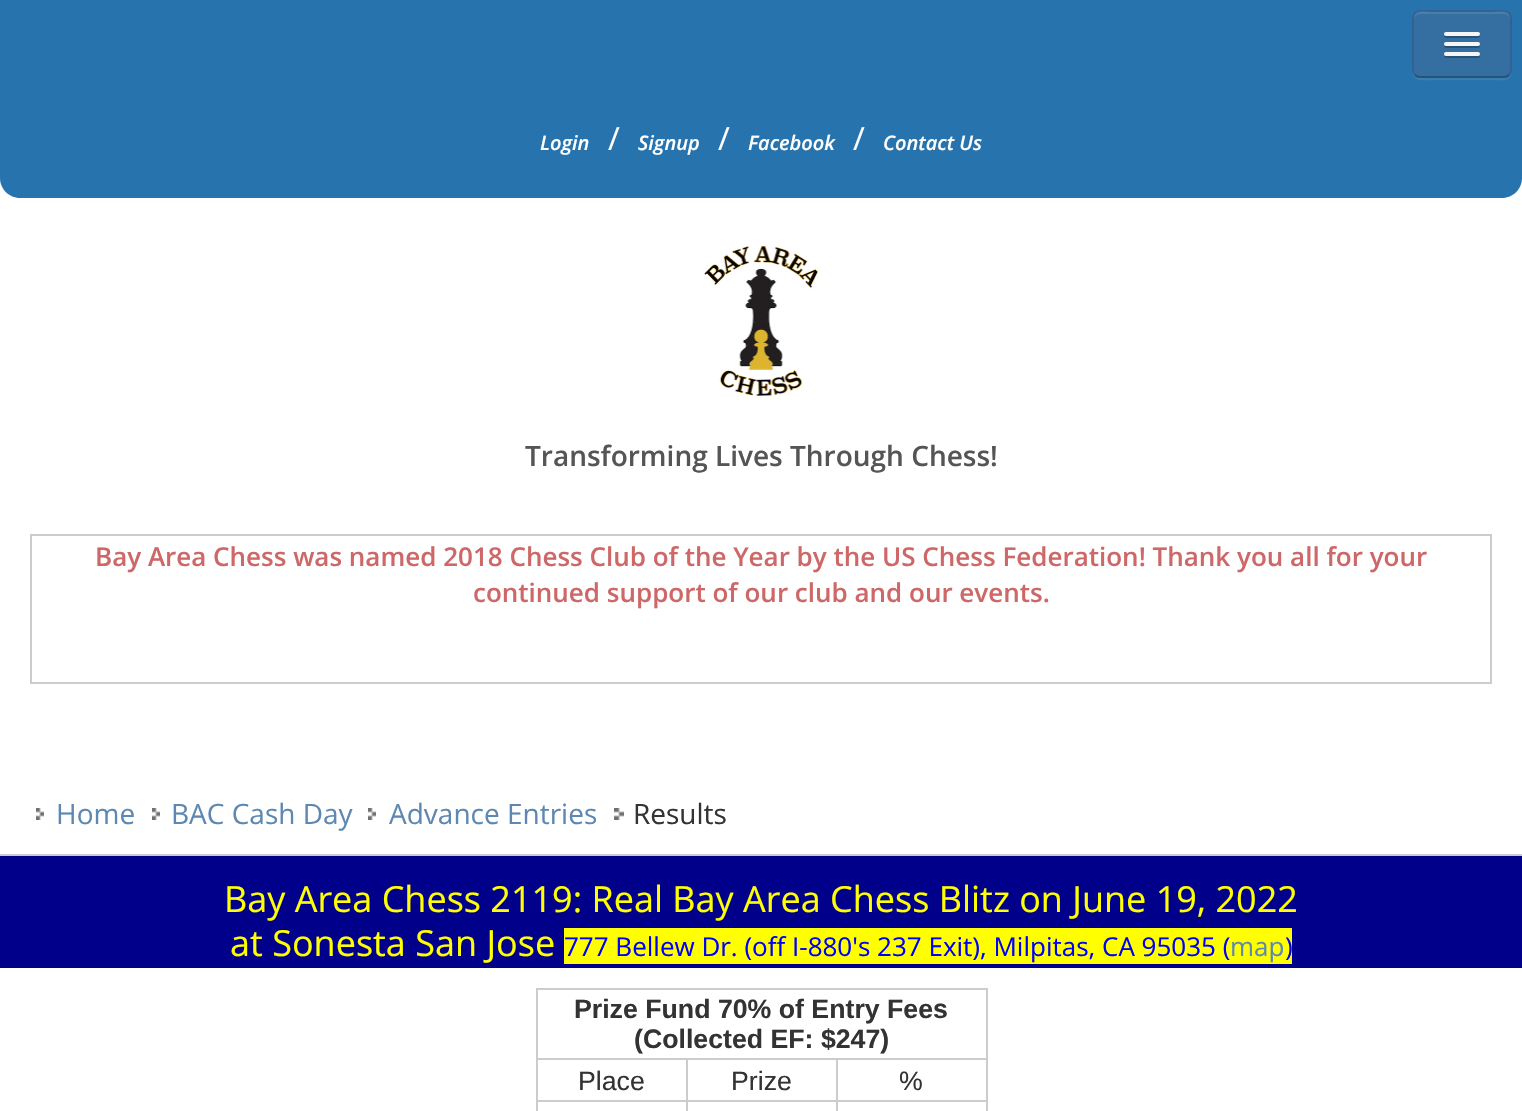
void draw(SkCanvas* c) {
SkPaint p;
p.setAntiAlias(true);
auto F=[&](const char* family, int weight, float size, bool italic = false){SkFontStyle style(weight, SkFontStyle::kNormal_Width,italic ? SkFontStyle::kItalic_Slant : SkFontStyle::kUpright_Slant);SkFont result(fontMgr->matchFamilyStyle(family, style), size);result.setSubpixel(true);return result;};
auto T=[&](const char* s, float x, float y, const SkFont& font){c->drawString(s, x, y, font, p);};
auto R=[&](float x, float y, float w, float h){c->drawRect(SkRect::MakeXYWH(x, y, w, h), p);};
auto Q=[&](float x, float y, float w, float h, float radius){c->drawRoundRect(SkRect::MakeXYWH(x, y, w, h), radius, radius, p);};
auto I=[&](const char* path, float x, float y, float w, float h){auto image = SkImages::DeferredFromEncodedData(SkData::MakeFromFileName(path));c->drawImageRect(image, SkRect::MakeXYWH(x, y, w, h), SkSamplingOptions());};
auto P=[&](const char* data, bool evenOdd = false){SkPath result = *SkParsePath::FromSVGString(data);if (evenOdd) result.setFillType(SkPathFillType::kEvenOdd);return result;};
c->clear(0xffffffff);
p.setColor(0xff2773ae);
R(0,0,1522,80);
c->drawPath(P("M0 80h1522v98c0 11-9 20-20 20h-1482c-11 0-20-9-20-20z"),p);
auto f1 = F("Open Sans",600,20,true);
p.setColor(0xffffffff);
T("Login",540,150,f1);
auto f2 = F("Open Sans",400,32);
T("/",608,150,f2);
T("Signup",638,150,f1);
T("/",718,150,f2);
T("Facebook",748,150,f1);
T("/",853,150,f2);
T("Contact Us",883,150,f1);
p.setColor(0xff377eb4);
c->drawPath(P("M1412 70c0 13 12 10 22 10h56c10 0 22 3 22-10c0 4-4 8-8 8h-84c-4 0-8-4-8-8z"),p);
p.setColor(0xff356ea1);
Q(1412,10,100,68,8);
p.setColor(0xff497daa);
c->drawPath(P("M1420 14h84c3 0 6 3 6 6c0-12-11-8-20-8h-56c-9 0-20-4-20 8c0-3 3-6 6-6z"),p);
p.setStroke(true);
p.setStrokeWidth(2);
p.setColor(0x40000000);
c->drawPath(P("M1509 75c-1.5 1.5-3 2-5 2h-84c-2 0-3.5-.5-5-2"),p);
p.setColor(0x1a000000);
c->drawPath(P("M1415 75c-1.5-1.5-2-3-2-5v-52c0-2 .5-3.5 2-5c1.5-1.5 3-2 5-2h84c2 0 3.5 .5 5 2c1.5 1.5 2 3 2 5v52c0 2-.5 3.5-2 5"),p);
p.setStroke(false);
p.setColor(0xff285379);
c->drawPath(P("M1444.5 35c-2.5 4 6.5 3 7 3h21c.5 0 9.5 1 7-3c0 .5-1 1-1.5 1h-32c-.5 0-1.5-.5-1.5-1z"),p);
p.setColor(0xfff5f5f5);
Q(1444,32,36,4,2);
p.setColor(0xff285379);
c->drawPath(P("M1444.5 45c-2.5 4 6.5 3 7 3h21c.5 0 9.5 1 7-3c0 .5-1 1-1.5 1h-32c-.5 0-1.5-.5-1.5-1z"),p);
p.setColor(0xfff5f5f5);
Q(1444,42,36,4,2);
p.setColor(0xff285379);
c->drawPath(P("M1444.5 55c-2.5 4 6.5 3 7 3h21c.5 0 9.5 1 7-3c0 .5-1 1-1.5 1h-32c-.5 0-1.5-.5-1.5-1z"),p);
p.setColor(0xfff5f5f5);
Q(1444,52,36,4,2);
I("1.png",704,246,114,150);
auto f3 = F("Open Sans",600,28);
p.setColor(0xff555555);
T("Transforming Lives Through Chess!",525,466,f3);
p.setColor(0xffcccccc);
R(30,534,1462,2);
R(1490,534,2,150);
R(30,682,1462,2);
R(30,534,2,150);
auto f4 = F("Open Sans",600,26);
p.setColor(0xffce6868);
T("Bay Area Chess was named 2018 Chess Club of the Year by the US Chess Federation! Thank you all for your",95,566,f4);
T("continued support of our club and our events.",473,602,f4);
p.setColor(0xffcccccc);
R(0,854,1522,2);
I("2.png",36,808,8,12);
auto f5 = F("Open Sans",400,28);
p.setColor(0xff5e88b1);
T("Home",56,824,f5);
I("2.png",152,808,8,12);
T("BAC Cash Day",171,824,f5);
I("2.png",368,808,8,12);
T("Advance Entries",389,824,f5);
I("3.png",614,808,10,12);
p.setColor(0xff333333);
T("Results",633,824,f5);
p.setColor(0xff00008b);
R(0,856,1522,112);
auto f6 = F("Open Sans",400,36);
p.setColor(0xffffff00);
T("Bay Area Chess 2119: Real Bay Area Chess Blitz on June 19, 2022",224,912,f6);
T("at Sonesta San Jose",230,956,f6);
R(564,928,728,36);
auto f7 = F("Open Sans",400,26);
p.setColor(0xff0000ff);
T("777 Bellew Dr. (off I-880's 237 Exit), Milpitas, CA 95035 (",564,956,f7);
p.setColor(0xff5e88b1);
T("map",1230,956,f7);
p.setColor(0xff0000ff);
T(")",1285,956,f7);
p.setColor(0xffcccccc);
R(536,988,452,2);
R(836,1058,152,2);
R(836,1100,152,2);
R(986,1100,2,11);
R(986,1058,2,44);
R(986,988,2,72);
R(836,1100,2,11);
R(686,1100,152,2);
R(836,1058,2,44);
R(686,1058,152,2);
R(686,1100,2,11);
R(536,1100,152,2);
R(686,1058,2,44);
R(536,1058,152,2);
R(536,1100,2,11);
R(536,1058,2,44);
R(536,988,2,72);
auto f8 = F("Liberation Sans",700,26.7);
p.setColor(0xff333333);
T("Prize Fund 70% of Entry Fees",574,1018,f8);
T("(Collected EF: $247)",634,1048,f8);
auto f9 = F("Liberation Sans",400,26.7);
T("Place",578,1090,f9);
T("Prize",731,1090,f9);
T("%",899,1090,f9);
}
